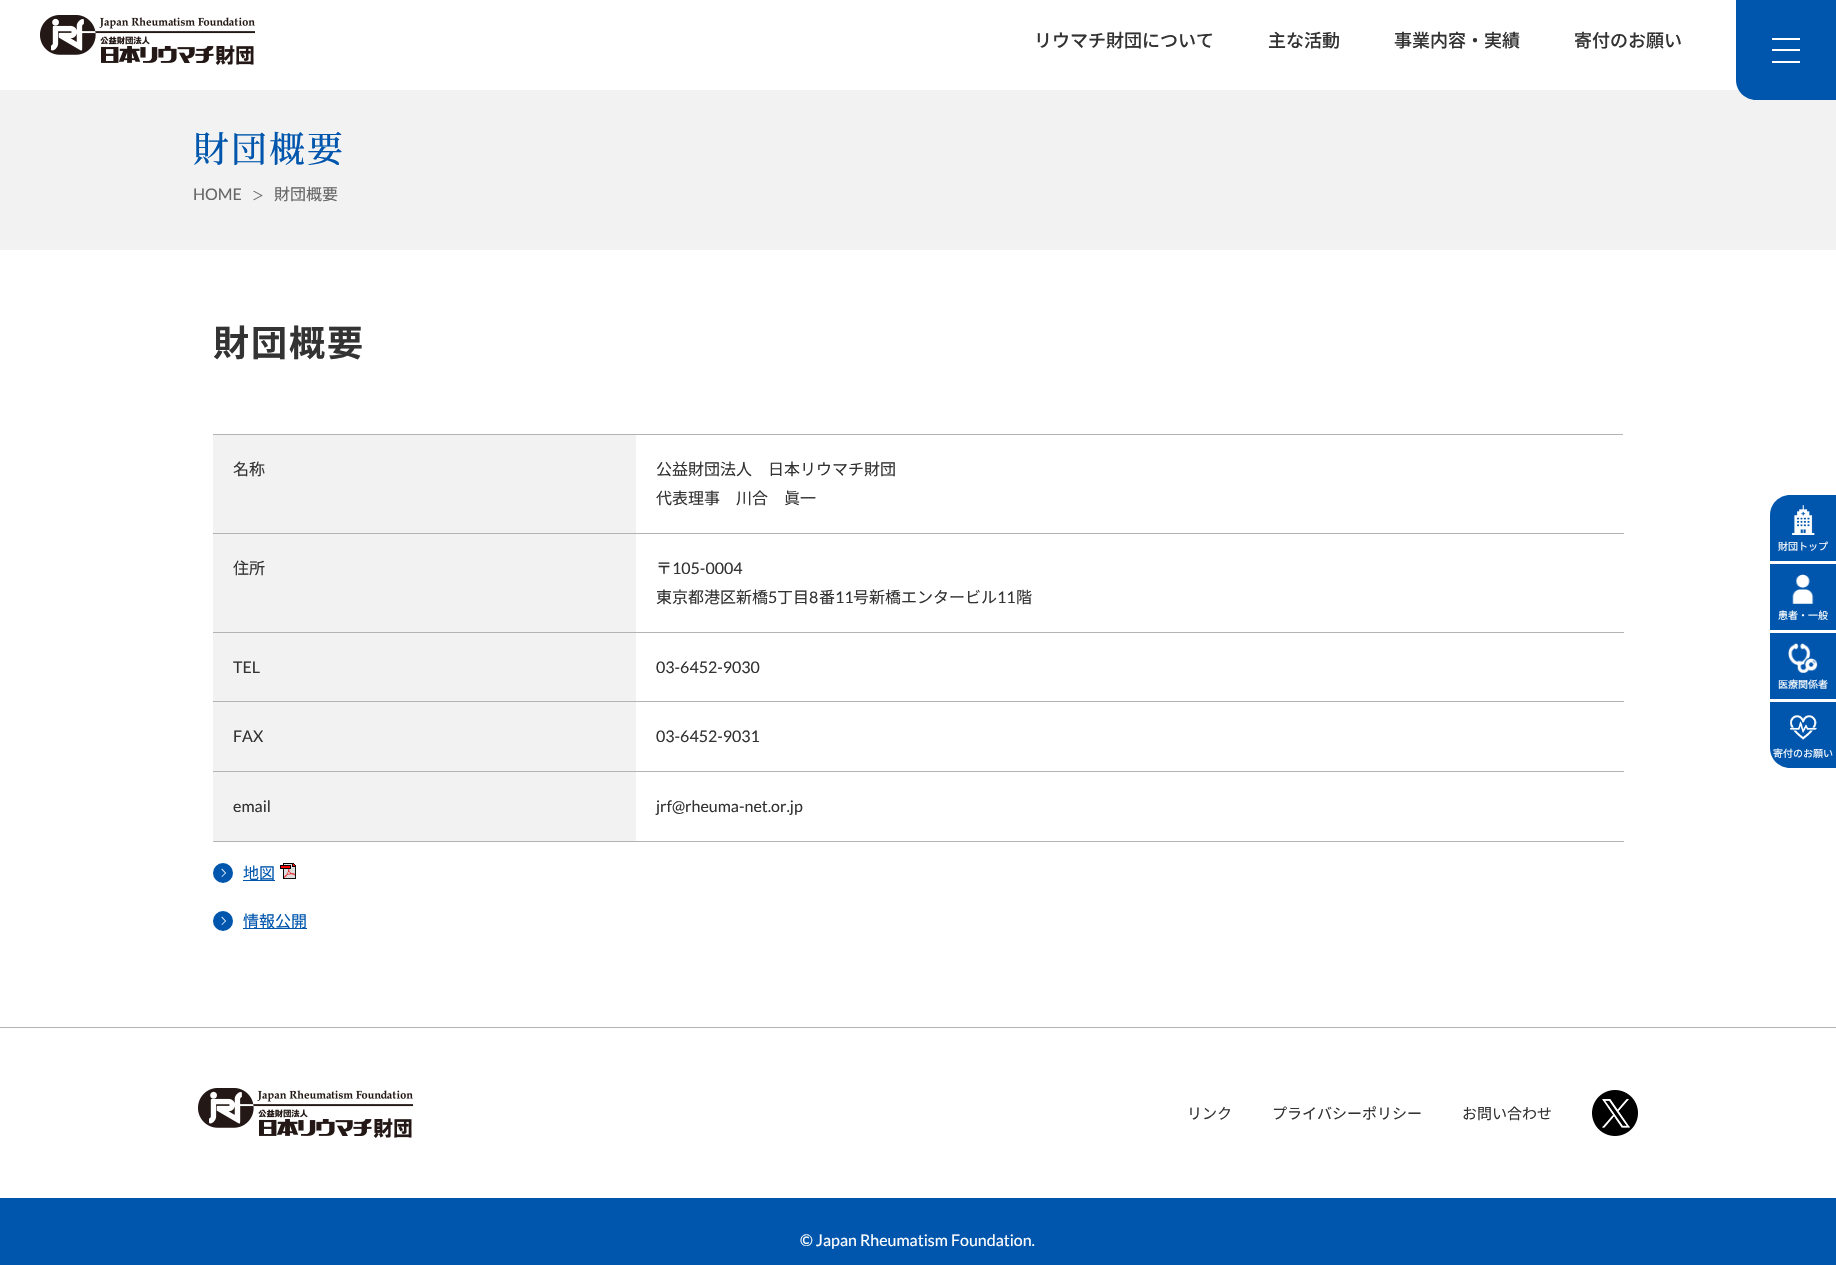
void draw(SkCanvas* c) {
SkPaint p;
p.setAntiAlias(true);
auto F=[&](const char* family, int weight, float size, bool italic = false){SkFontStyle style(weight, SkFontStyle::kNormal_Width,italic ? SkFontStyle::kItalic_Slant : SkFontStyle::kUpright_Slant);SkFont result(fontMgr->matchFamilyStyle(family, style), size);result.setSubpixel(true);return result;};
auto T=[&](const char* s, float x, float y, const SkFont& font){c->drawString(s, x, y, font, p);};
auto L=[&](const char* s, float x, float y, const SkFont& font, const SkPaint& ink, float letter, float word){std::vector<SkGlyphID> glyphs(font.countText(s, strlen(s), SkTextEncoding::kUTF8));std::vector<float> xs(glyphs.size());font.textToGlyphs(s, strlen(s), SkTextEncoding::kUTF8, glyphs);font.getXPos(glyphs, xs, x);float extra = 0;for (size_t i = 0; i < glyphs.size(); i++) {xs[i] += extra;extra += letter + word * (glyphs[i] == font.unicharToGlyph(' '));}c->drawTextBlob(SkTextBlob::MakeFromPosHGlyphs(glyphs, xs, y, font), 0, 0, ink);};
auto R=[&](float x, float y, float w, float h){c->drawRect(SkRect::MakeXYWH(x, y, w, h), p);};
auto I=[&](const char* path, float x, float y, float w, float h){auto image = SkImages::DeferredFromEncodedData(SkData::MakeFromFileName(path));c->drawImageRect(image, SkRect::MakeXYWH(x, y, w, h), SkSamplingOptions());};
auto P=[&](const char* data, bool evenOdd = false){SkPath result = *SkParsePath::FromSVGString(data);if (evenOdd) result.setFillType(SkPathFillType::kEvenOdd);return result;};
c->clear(0xffffffff);
I("1.png",40,15,215,50);
auto f1 = F("Noto Sans JP",500,18);
p.setColor(0xff333333);
T("リウマチ財団について",1034,47,f1);
T("主な活動",1268,47,f1);
T("事業内容・実績",1394,47,f1);
T("寄付のお願い",1574,47,f1);
p.setColor(0xfff2f2f2);
R(0,90,1836,160);
p.setColor(0xff0056ad);
c->drawPath(P("M1736 0h100v100h-80c-11 0-20-9-20-20z"),p);
p.setColor(0xffffffff);
R(1772,38,28,2);
R(1772,49,28,2);
R(1772,61,28,2);
auto f2 = F("Noto Serif CJK JP",500,36);
p.setColor(0xff0056ad);
L("財団概要",193,162,f2,p,2,0);
auto f3 = F("Lato",400,16);
p.setColor(0xff666666);
T("HOME",193,200,f3);
auto f4 = F("Noto Sans JP",400,12);
T("＞",252,200,f4);
auto f5 = F("Noto Sans JP",400,16);
T("財団概要",274,200,f5);
auto f6 = F("Noto Sans JP",700,36);
p.setColor(0xff333333);
L("財団概要",213,356,f6,p,2,0);
p.setColor(0xffb3b3b3);
R(213,434,1410,1);
p.setColor(0xfff2f2f2);
R(213,435,423,98);
p.setColor(0xff333333);
T("名称",233,475,f5);
p.setColor(0xffb3b3b3);
R(213,533,1411,1);
p.setColor(0xff333333);
T("公益財団法人　日本リウマチ財団",656,475,f5);
T("代表理事　川合　眞一",656,504,f5);
p.setColor(0xfff2f2f2);
R(213,534,423,98);
p.setColor(0xff333333);
T("住所",233,574,f5);
p.setColor(0xffb3b3b3);
R(213,632,1411,1);
p.setColor(0xff333333);
T("〒",656,574,f5);
T("105-0004",672,574,f3);
T("東京都港区新橋",656,603,f5);
T("5",768,603,f3);
T("丁目",777,603,f5);
T("8",809,603,f3);
T("番",819,603,f5);
T("11",835,603,f3);
T("号新橋エンタービル",853,603,f5);
T("11",997,603,f3);
T("階",1016,603,f5);
p.setColor(0xfff2f2f2);
R(213,633,423,68);
p.setColor(0xff333333);
T("TEL",233,673,f3);
p.setColor(0xffb3b3b3);
R(213,701,1411,1);
p.setColor(0xff333333);
T("03-6452-9030",656,673,f3);
p.setColor(0xfff2f2f2);
R(213,702,423,69);
p.setColor(0xff333333);
T("FAX",233,742,f3);
p.setColor(0xffb3b3b3);
R(213,771,1411,1);
p.setColor(0xff333333);
T("03-6452-9031",656,742,f3);
p.setColor(0xfff2f2f2);
R(213,772,423,69);
p.setColor(0xff333333);
T("email",233,812,f3);
p.setColor(0xffb3b3b3);
R(213,841,1411,1);
p.setColor(0xff333333);
T("jrf@rheuma-net.or.jp",656,812,f3);
p.setColor(0xff0056ad);
c->drawCircle(223,873,10,p);
R(243,880,32,1);
T("地図",243,879,f5);
I("2.png",280,863,16,16);
p.setColor(0xffffffff);
c->drawPath(P("M222 868.5l4 4.5l-.5 .5l-4-4z"),p);
c->drawPath(P("M225.5 872.5l.5 .5l-4 4l-.5-.5z"),p);
p.setColor(0xff0056ad);
c->drawCircle(223,921,10,p);
R(243,928,64,1);
T("情報公開",243,927,f5);
p.setColor(0xffffffff);
c->drawPath(P("M222 916.5l4 4.5l-.5 .5l-4-4z"),p);
c->drawPath(P("M225.5 920.5l.5 .5l-4 4l-.5-.5z"),p);
p.setColor(0xff0056ad);
c->drawPath(P("M1790 495h46v66h-66v-46c0-11 9-20 20-20z"),p);
I("3.png",1792,505,23,30);
auto f7 = F("Noto Sans JP",400,10);
p.setColor(0xffffffff);
T("財団トップ",1778,550,f7);
p.setColor(0xff0056ad);
R(1770,564,66,66);
I("4.png",1792,574,22,30);
p.setColor(0xffffffff);
T("患者・一般",1778,619,f7);
p.setColor(0xff0056ad);
R(1770,633,66,66);
I("5.png",1788,643,30,30);
p.setColor(0xffffffff);
T("医療関係者",1778,688,f7);
p.setColor(0xff0056ad);
c->drawPath(P("M1770 702h66v66h-46c-11 0-20-9-20-20z"),p);
I("6.png",1790,715,27,25);
p.setColor(0xffffffff);
T("寄付のお願い",1773,757,f7);
p.setColor(0xffb3b3b3);
R(0,1027,1836,1);
I("1.png",198,1088,215,50);
auto f8 = F("Noto Sans JP",400,15);
p.setColor(0xff333333);
T("リンク",1187,1119,f8);
T("プライバシーポリシー",1272,1119,f8);
T("お問い合わせ",1462,1119,f8);
I("7.png",1592,1090,46,46);
p.setColor(0xff0056ad);
R(0,1198,1836,67);
p.setColor(0xffffffff);
T("© Japan Rheumatism Foundation.",800,1246,f3);
}
